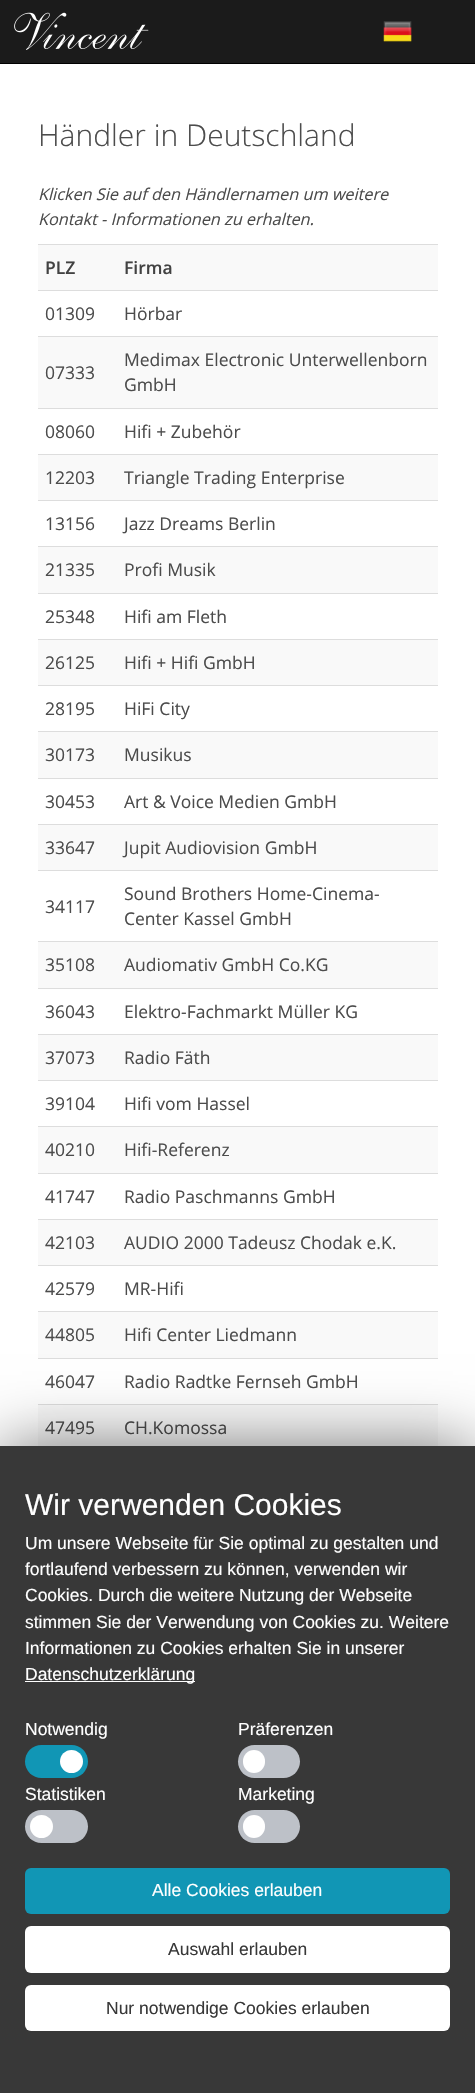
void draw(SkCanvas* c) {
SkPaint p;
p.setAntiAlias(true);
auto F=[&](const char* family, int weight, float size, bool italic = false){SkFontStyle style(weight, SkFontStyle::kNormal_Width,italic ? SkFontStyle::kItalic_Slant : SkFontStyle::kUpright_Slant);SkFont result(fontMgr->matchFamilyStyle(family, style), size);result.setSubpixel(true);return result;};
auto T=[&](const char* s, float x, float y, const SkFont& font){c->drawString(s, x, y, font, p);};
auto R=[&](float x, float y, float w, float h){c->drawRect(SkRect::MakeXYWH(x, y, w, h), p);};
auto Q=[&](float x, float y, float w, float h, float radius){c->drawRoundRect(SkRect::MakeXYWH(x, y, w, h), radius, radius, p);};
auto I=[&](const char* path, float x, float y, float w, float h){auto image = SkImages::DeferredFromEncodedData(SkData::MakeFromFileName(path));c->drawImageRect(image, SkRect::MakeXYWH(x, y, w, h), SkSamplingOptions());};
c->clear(0xffffffff);
p.setColor(0xff1b1b1b);
R(0,0,475,63);
p.setColor(0xff000000);
R(0,63,475,1);
I("1.png",14,12,135,38);
I("2.png",383,21,29,21);
auto f1 = F("Open Sans",300,30);
p.setColor(0xff4c4c4c);
T("Händler in Deutschland",38,146,f1);
auto f2 = F("Open Sans",400,16.25,true);
T("Klicken Sie auf den Händlernamen um weitere",38,200,f2);
T("Kontakt - Informationen zu erhalten.",38,225,f2);
p.setColor(0xfff9f9f9);
R(38,245,400,45);
p.setColor(0xffdddddd);
R(38,244,400,1);
R(38,290,400,1);
auto f3 = F("Open Sans",600,17.5);
p.setColor(0xff424242);
T("PLZ",45,274,f3);
T("Firma",124,274,f3);
auto f4 = F("Open Sans",400,17.5);
p.setColor(0xff4c4c4c);
T("01309",45,320,f4);
T("Hörbar",124,320,f4);
p.setColor(0xfff9f9f9);
R(38,337,400,71);
p.setColor(0xffdddddd);
R(38,336,400,1);
R(38,408,400,1);
p.setColor(0xff4c4c4c);
T("07333",45,379,f4);
T("Medimax Electronic Unterwellenborn",124,366,f4);
T("GmbH",124,391,f4);
T("08060",45,438,f4);
T("Hifi + Zubehör",124,438,f4);
p.setColor(0xfff9f9f9);
R(38,455,400,45);
p.setColor(0xffdddddd);
R(38,454,400,1);
R(38,500,400,1);
p.setColor(0xff4c4c4c);
T("12203",45,484,f4);
T("Triangle Trading Enterprise",124,484,f4);
T("13156",45,530,f4);
T("Jazz Dreams Berlin",124,530,f4);
p.setColor(0xfff9f9f9);
R(38,547,400,46);
p.setColor(0xffdddddd);
R(38,546,400,1);
R(38,593,400,1);
p.setColor(0xff4c4c4c);
T("21335",45,576,f4);
T("Profi Musik",124,576,f4);
T("25348",45,623,f4);
T("Hifi am Fleth",124,623,f4);
p.setColor(0xfff9f9f9);
R(38,640,400,45);
p.setColor(0xffdddddd);
R(38,639,400,1);
R(38,685,400,1);
p.setColor(0xff4c4c4c);
T("26125",45,669,f4);
T("Hifi + Hifi GmbH",124,669,f4);
T("28195",45,715,f4);
T("HiFi City",124,715,f4);
p.setColor(0xfff9f9f9);
R(38,732,400,46);
p.setColor(0xffdddddd);
R(38,731,400,1);
R(38,778,400,1);
p.setColor(0xff4c4c4c);
T("30173",45,761,f4);
T("Musikus",124,761,f4);
T("30453",45,808,f4);
T("Art & Voice Medien GmbH",124,808,f4);
p.setColor(0xfff9f9f9);
R(38,825,400,45);
p.setColor(0xffdddddd);
R(38,824,400,1);
R(38,870,400,1);
p.setColor(0xff4c4c4c);
T("33647",45,854,f4);
T("Jupit Audiovision GmbH",124,854,f4);
T("34117",45,913,f4);
T("Sound Brothers Home-Cinema-",124,900,f4);
T("Center Kassel GmbH",124,925,f4);
p.setColor(0xfff9f9f9);
R(38,942,400,46);
p.setColor(0xffdddddd);
R(38,941,400,1);
R(38,988,400,1);
p.setColor(0xff4c4c4c);
T("35108",45,971,f4);
T("Audiomativ GmbH Co.KG",124,971,f4);
T("36043",45,1018,f4);
T("Elektro-Fachmarkt Müller KG",124,1018,f4);
p.setColor(0xfff9f9f9);
R(38,1035,400,45);
p.setColor(0xffdddddd);
R(38,1034,400,1);
R(38,1080,400,1);
p.setColor(0xff4c4c4c);
T("37073",45,1064,f4);
T("Radio Fäth",124,1064,f4);
T("39104",45,1110,f4);
T("Hifi vom Hassel",124,1110,f4);
p.setColor(0xfff9f9f9);
R(38,1127,400,46);
p.setColor(0xffdddddd);
R(38,1126,400,1);
R(38,1173,400,1);
p.setColor(0xff4c4c4c);
T("40210",45,1156,f4);
T("Hifi-Referenz",124,1156,f4);
T("41747",45,1203,f4);
T("Radio Paschmanns GmbH",124,1203,f4);
p.setColor(0xfff9f9f9);
R(38,1220,400,45);
p.setColor(0xffdddddd);
R(38,1219,400,1);
R(38,1265,400,1);
p.setColor(0xff4c4c4c);
T("42103",45,1249,f4);
T("AUDIO 2000 Tadeusz Chodak e.K.",124,1249,f4);
T("42579",45,1295,f4);
T("MR-Hifi",124,1295,f4);
p.setColor(0xfff9f9f9);
R(38,1312,400,46);
p.setColor(0xffdddddd);
R(38,1311,400,1);
R(38,1358,400,1);
p.setColor(0xff4c4c4c);
T("44805",45,1341,f4);
T("Hifi Center Liedmann",124,1341,f4);
T("46047",45,1388,f4);
T("Radio Radtke Fernseh GmbH",124,1388,f4);
p.setColor(0xfff9f9f9);
R(38,1405,400,41);
p.setColor(0xffdddddd);
R(38,1404,400,1);
p.setColor(0xff4c4c4c);
T("47495",45,1434,f4);
T("CH.Komossa",124,1434,f4);
p.setColor(0x85000000);
p.setMaskFilter(SkMaskFilter::MakeBlur(kNormal_SkBlurStyle, 31));
c->drawRect(SkRect::MakeXYWH(0,1446,475,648),p);
p.setMaskFilter(nullptr);
p.setColor(0xff383838);
R(0,1446,475,647);
auto f5 = F("Liberation Sans",400,30);
p.setColor(0xffffffff);
T("Wir verwenden Cookies",25,1515,f5);
auto f6 = F("Liberation Sans",400,17.5);
T("Um unsere Webseite für Sie optimal zu gestalten und",25,1549,f6);
T("fortlaufend verbessern zu können, verwenden wir",25,1575,f6);
T("Cookies. Durch die weitere Nutzung der Webseite",25,1601,f6);
T("stimmen Sie der Verwendung von Cookies zu. Weitere",25,1628,f6);
T("Informationen zu Cookies erhalten Sie in unserer",25,1654,f6);
R(25,1681,170,1);
T("Datenschutzerklärung",25,1680,f6);
T("Notwendig",25,1735,f6);
p.setColor(0xff1196b5);
Q(25,1745,63,33,16.5);
p.setColor(0xffffffff);
c->drawCircle(71.5,1761.5,11.5,p);
T("Präferenzen",238,1735,f6);
p.setColor(0xffbdc1c8);
Q(238,1745,62,33,16.5);
p.setColor(0xffffffff);
Q(243,1750,22,23,11);
T("Statistiken",25,1800,f6);
p.setColor(0xffbdc1c8);
Q(25,1810,63,33,16.5);
p.setColor(0xffffffff);
c->drawCircle(41.5,1826.5,11.5,p);
T("Marketing",238,1800,f6);
p.setColor(0xffbdc1c8);
Q(238,1810,62,33,16.5);
p.setColor(0xffffffff);
Q(243,1815,22,23,11);
p.setColor(0xff1196b5);
Q(25,1868,425,46,6);
p.setColor(0xffffffff);
T("Alle Cookies erlauben",152,1896,f6);
Q(25,1926,425,47,6);
p.setColor(0xff383838);
T("Auswahl erlauben",168,1955,f6);
p.setColor(0xffffffff);
Q(25,1985,425,46,6);
p.setColor(0xff383838);
T("Nur notwendige Cookies erlauben",106,2014,f6);
}
